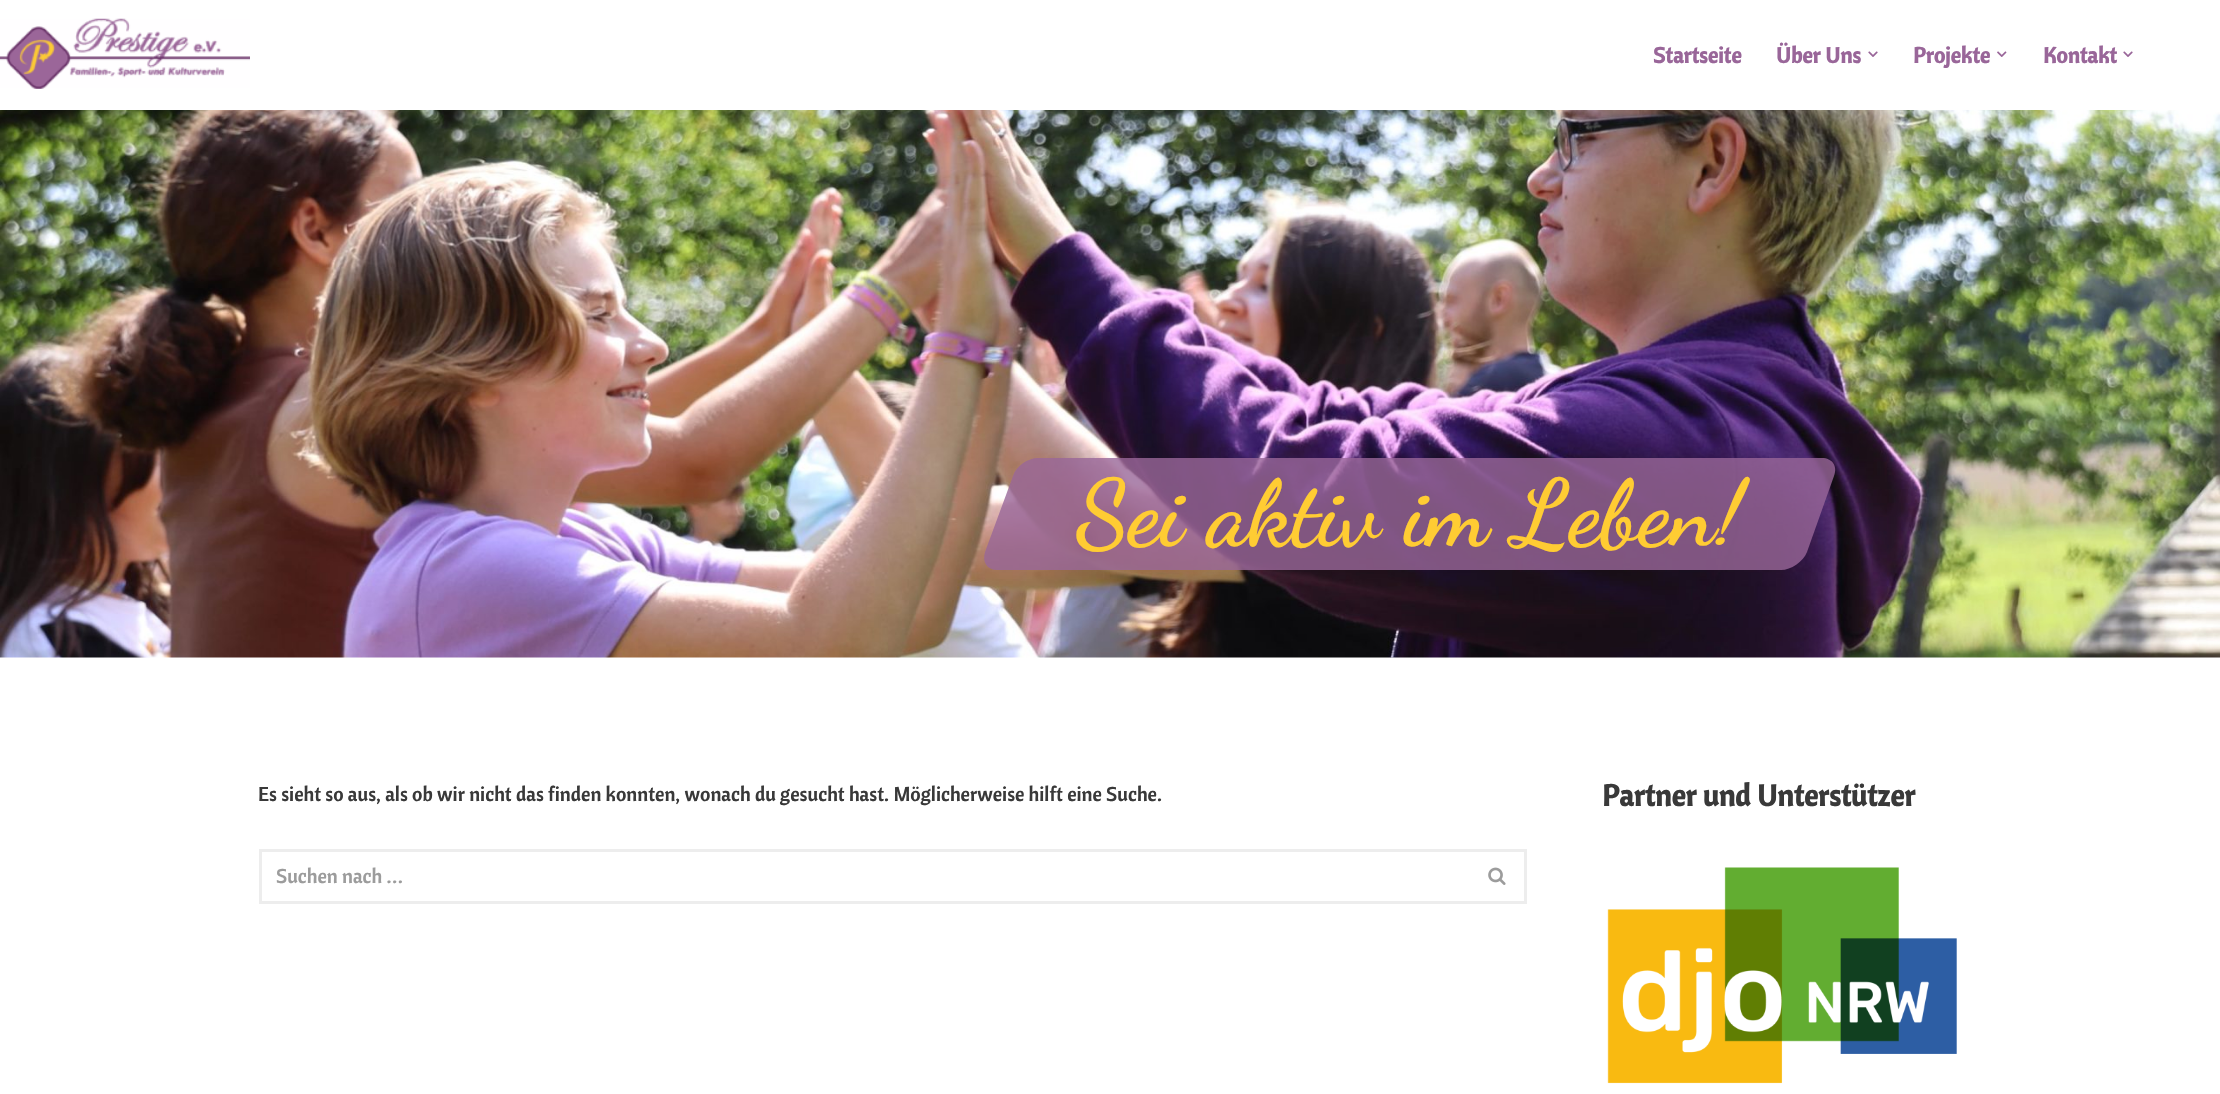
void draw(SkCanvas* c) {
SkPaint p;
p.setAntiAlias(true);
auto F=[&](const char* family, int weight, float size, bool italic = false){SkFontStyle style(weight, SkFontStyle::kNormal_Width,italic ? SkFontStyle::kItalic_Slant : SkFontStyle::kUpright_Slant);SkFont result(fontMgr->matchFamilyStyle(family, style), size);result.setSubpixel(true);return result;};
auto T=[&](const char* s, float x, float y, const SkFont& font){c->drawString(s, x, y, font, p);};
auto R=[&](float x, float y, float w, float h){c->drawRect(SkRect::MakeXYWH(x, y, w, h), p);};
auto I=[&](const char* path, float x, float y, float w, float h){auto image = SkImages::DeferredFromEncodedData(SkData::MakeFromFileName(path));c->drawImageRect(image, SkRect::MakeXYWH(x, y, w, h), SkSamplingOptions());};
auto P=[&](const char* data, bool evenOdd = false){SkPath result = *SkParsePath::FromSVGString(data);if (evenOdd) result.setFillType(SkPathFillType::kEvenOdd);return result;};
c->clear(0xffffffff);
I("1.png",0,18,250,71);
auto f1 = F("Cantora One",700,22);
p.setColor(0xff996699);
T("Startseite",1653,63,f1);
T("Über Uns",1776,63,f1);
I("2.png",1868,51,10,6);
T("Projekte",1913,63,f1);
I("3.png",1997,51,10,6);
T("Kontakt",2043,63,f1);
I("2.png",2123,51,10,6);
I("4.png",0,110,2220,548);
p.setColor(0xcc996699);
c->drawPath(P("M1038 458h784c10 0 16 8 12 18l-27 76c-4 10-16 18-26 18h-784c-10 0-15-8-12-18l28-76c3-10 15-18 25-18z"),p);
auto f2 = F("Dancing Script",700,93.25);
p.setColor(0xffffcc33);
T("Sei aktiv im Leben!",1076,544,f2);
auto f3 = F("Cantora One",400,20);
p.setColor(0xff393939);
T("Es sieht so aus, als ob wir nicht das finden konnten, wonach du gesucht hast. Möglicherweise hilft eine Suche.",258,801,f3);
p.setColor(0xffededed);
R(259,849,1267,3);
R(259,901,1211,3);
R(259,849,3,55);
p.setColor(0xff9c9c9c);
T("Suchen nach …",276,883,f3);
p.setColor(0xffededed);
R(1524,849,3,55);
R(1470,901,56,3);
I("5.png",1488,867,18,18);
auto f4 = F("Cantora One",700,30);
p.setColor(0xff393939);
T("Partner und Unterstützer",1602,806,f4);
I("6.png",1607,867,350,217);
}
